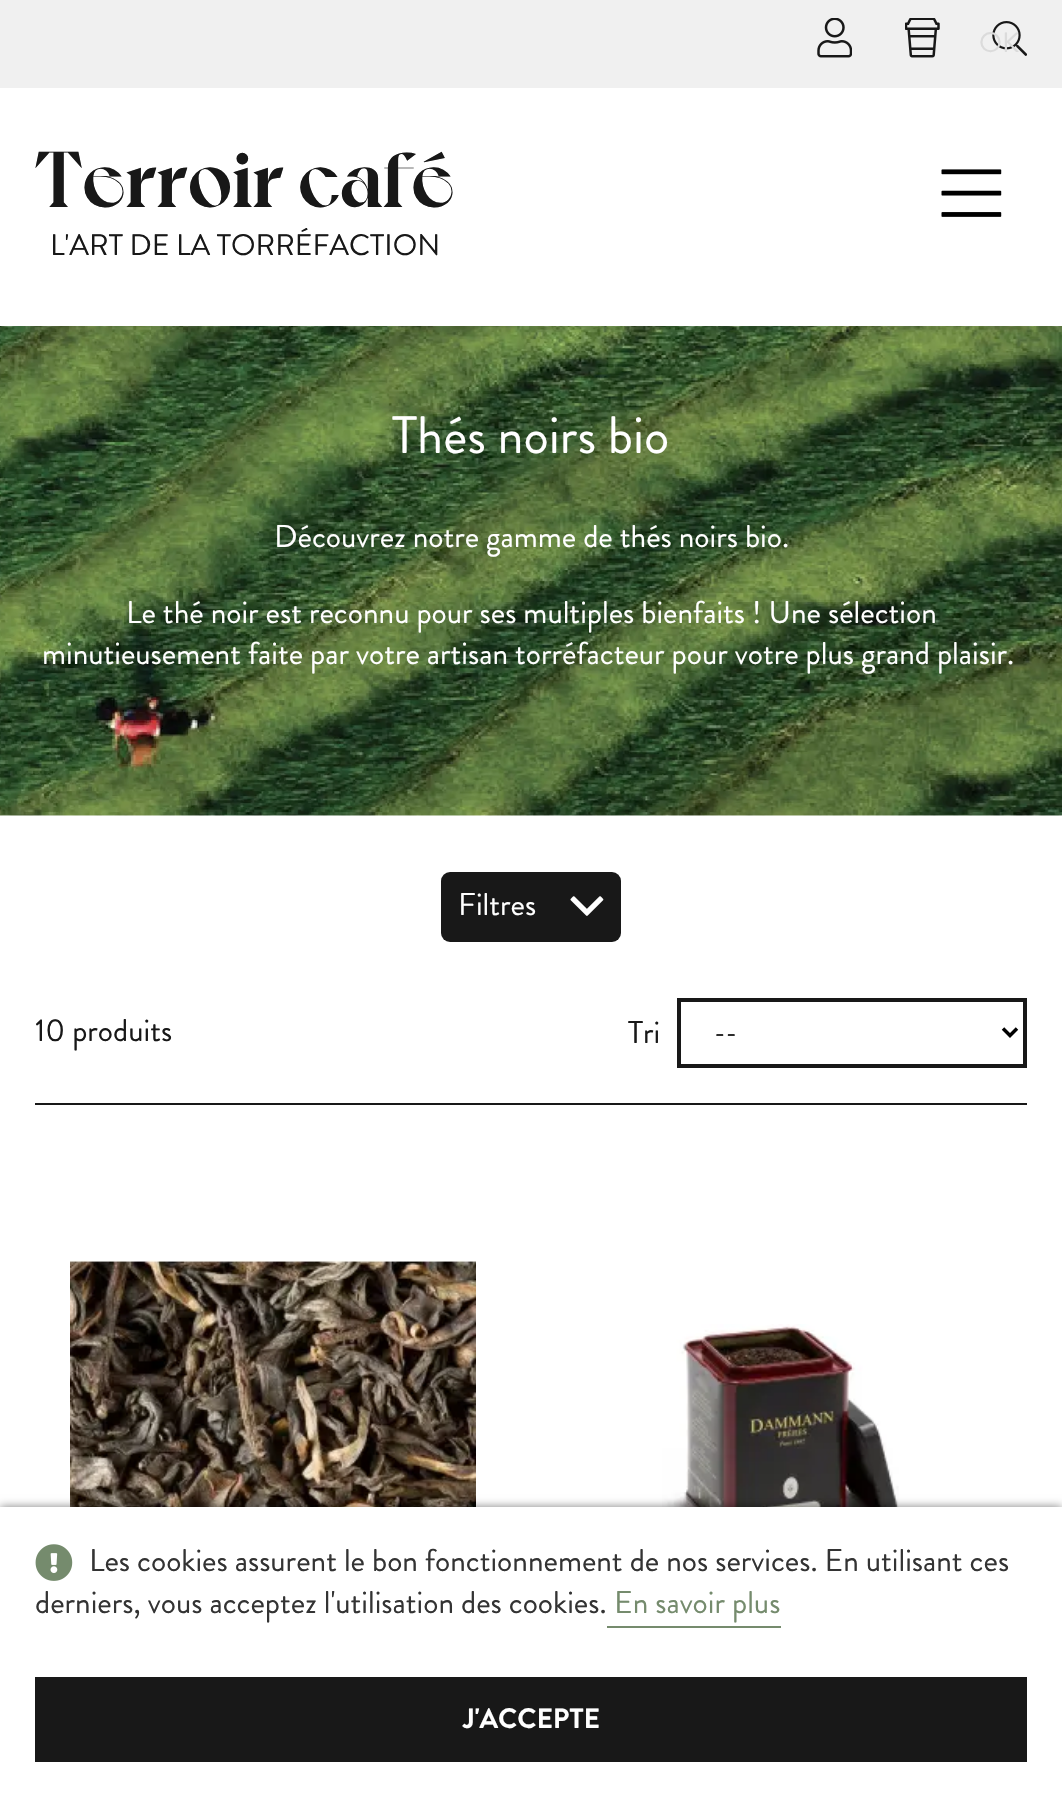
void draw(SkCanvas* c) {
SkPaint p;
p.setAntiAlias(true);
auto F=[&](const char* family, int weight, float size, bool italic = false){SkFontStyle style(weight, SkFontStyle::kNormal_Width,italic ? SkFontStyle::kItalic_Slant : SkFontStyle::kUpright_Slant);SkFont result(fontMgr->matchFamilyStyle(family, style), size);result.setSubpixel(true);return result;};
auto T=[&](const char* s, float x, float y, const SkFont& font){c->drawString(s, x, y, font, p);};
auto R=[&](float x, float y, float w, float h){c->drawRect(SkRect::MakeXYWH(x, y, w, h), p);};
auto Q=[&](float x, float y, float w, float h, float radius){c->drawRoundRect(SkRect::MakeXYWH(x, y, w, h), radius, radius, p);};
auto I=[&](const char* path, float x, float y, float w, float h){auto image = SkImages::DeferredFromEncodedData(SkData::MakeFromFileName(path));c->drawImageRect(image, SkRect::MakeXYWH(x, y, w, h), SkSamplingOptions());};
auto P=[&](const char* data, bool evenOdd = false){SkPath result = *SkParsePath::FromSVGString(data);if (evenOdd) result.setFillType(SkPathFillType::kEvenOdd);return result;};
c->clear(0xffffffff);
p.setColor(0xfff0f0f0);
R(0,0,1062,88);
I("1.png",817,18,35,40);
I("2.png",905,18,35,40);
I("3.png",992,21,35,35);
auto f1 = F("Brandon Grotesque",400,28);
p.setColor(0xffdbdbdb);
T("OK",979,52,f1);
auto f2 = F("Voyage",700,78.75);
p.setColor(0xff181818);
T("Terroir café",35,207,f2);
auto f3 = F("Brandon Grotesque",400,29.75);
T("L'ART DE LA TORRÉFACTION",50,255,f3);
I("4.png",941,169,61,48);
I("5.png",0,326,1062,490);
auto f4 = F("Brandon Grotesque",400,52.5);
p.setColor(0xffffffff);
T("Thés noirs bio",392,453,f4);
auto f5 = F("Brandon Grotesque",400,31.5);
T("Découvrez notre gamme de thés noirs bio.",274,547,f5);
T("Le thé noir est reconnu pour ses multiples bienfaits ! Une sélection",126,623,f5);
T("minutieusement faite par votre artisan torréfacteur pour votre plus grand plaisir.",42,664,f5);
p.setColor(0xff181818);
Q(441,872,180,70,9);
p.setColor(0xffffffff);
T("Filtres",458,915,f5);
I("6.png",570,896,34,20);
p.setColor(0xff181818);
R(35,1103,992,2);
T("10 produits",35,1041,f5);
T("Tri",628,1043,f5);
p.setStroke(true);
p.setStrokeWidth(4);
c->drawRect(SkRect::MakeXYWH(679,1000,346,66),p);
p.setStrokeWidth(3.5);
p.setColor(0xff000000);
c->drawPath(P("M1003 1028.5l7 7l7-7"),p);
p.setStroke(false);
T("--",714,1042,f1);
I("7.png",70,1260,406,247);
I("8.png",662,1324,237,183);
p.setColor(0x80000000);
p.setMaskFilter(SkMaskFilter::MakeBlur(kNormal_SkBlurStyle, 4.5));
c->drawRect(SkRect::MakeXYWH(0,1507,1062,290),p);
p.setMaskFilter(nullptr);
p.setColor(0xffffffff);
R(0,1507,1062,290);
I("9.png",35,1544,38,37);
p.setColor(0xff333333);
T("Les cookies assurent le bon fonctionnement de nos services. En utilisant ces",89,1571,f5);
T("derniers, vous acceptez l'utilisation des cookies.",35,1613,f5);
p.setColor(0xff758b6d);
T("En savoir plus",614,1613,f5);
R(607,1626,174,2);
p.setColor(0xff181818);
R(35,1677,992,85);
auto f6 = F("Brandon Grotesque",700,28);
p.setColor(0xffffffff);
T("J'ACCEPTE",463,1728,f6);
}
